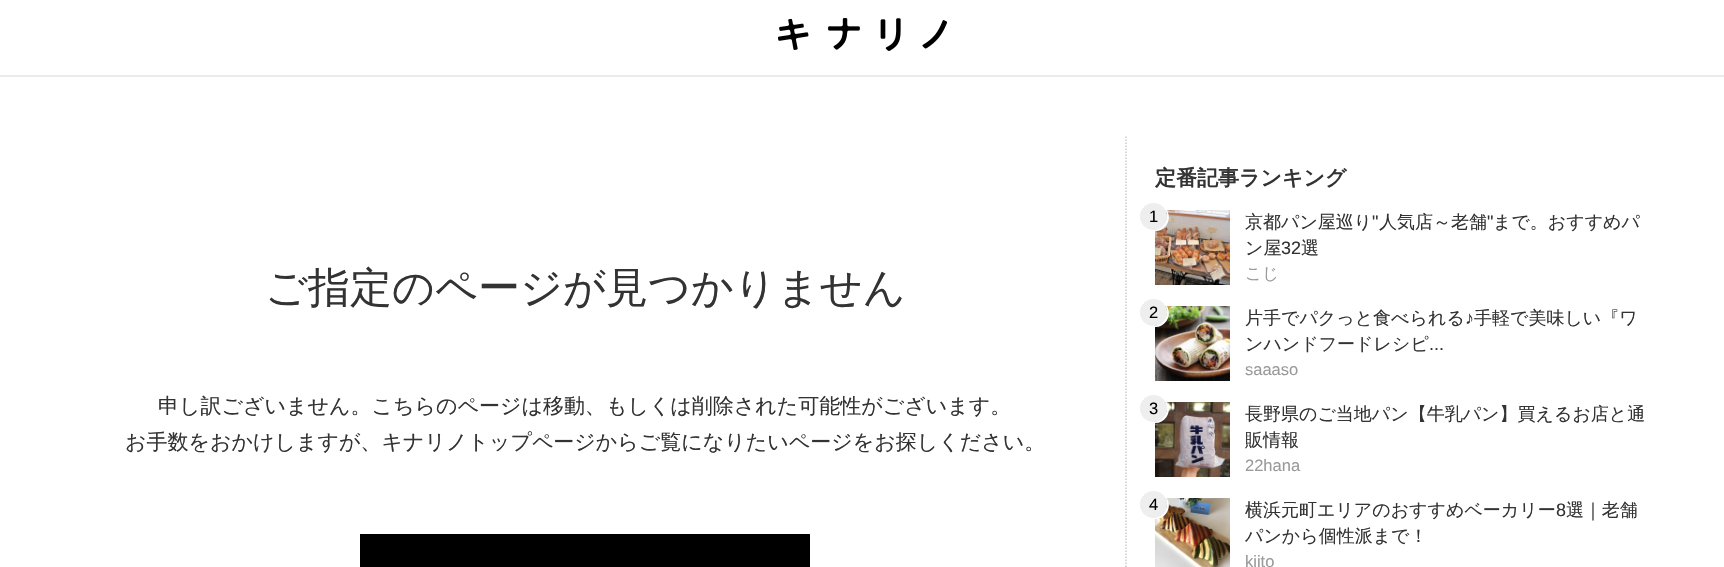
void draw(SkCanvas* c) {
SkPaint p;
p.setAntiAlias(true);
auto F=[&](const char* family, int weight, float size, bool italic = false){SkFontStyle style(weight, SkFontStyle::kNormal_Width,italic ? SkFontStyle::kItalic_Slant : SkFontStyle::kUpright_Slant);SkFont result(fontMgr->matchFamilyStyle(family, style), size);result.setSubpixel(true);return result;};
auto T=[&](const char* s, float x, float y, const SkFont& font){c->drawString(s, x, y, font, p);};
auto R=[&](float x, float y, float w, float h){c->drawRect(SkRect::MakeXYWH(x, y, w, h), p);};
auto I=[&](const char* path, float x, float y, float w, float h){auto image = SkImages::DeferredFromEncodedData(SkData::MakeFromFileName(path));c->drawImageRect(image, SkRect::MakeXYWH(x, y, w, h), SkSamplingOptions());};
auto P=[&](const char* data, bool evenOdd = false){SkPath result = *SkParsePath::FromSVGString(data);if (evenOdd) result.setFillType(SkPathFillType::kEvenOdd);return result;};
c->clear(0xffffffff);
p.setColor(0xffebebeb);
R(0,75,1724,2);
I("1.png",778,18,169,33);
auto f1 = F("WenQuanYi Zen Hei",500,42);
p.setColor(0xff333333);
T("ご指定のページが見つかりません",265,302,f1);
auto f2 = F("WenQuanYi Zen Hei",500,21);
T("申し訳ございません。こちらのページは移動、もしくは削除された可能性がございます。",158,413,f2);
T("お手数をおかけしますが、キナリノトップページからご覧になりたいページをお探しください。",125,449,f2);
p.setColor(0xff000000);
R(360,534,450,33);
p.setStroke(true);
p.setStrokeWidth(1.5);
p.setColor(0xffcccccc);
p.setPathEffect(SkDashPathEffect::Make({{1.5f,1.5f}}, 0));
c->drawPath(P("M1126 136.5v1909.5"),p);
p.setPathEffect(nullptr);
auto f3 = F("WenQuanYi Zen Hei",700,21);
p.setStroke(false);
p.setColor(0xff333333);
T("定番記事ランキング",1155,185,f3);
I("2.png",1155,210,75,75);
p.setColor(0xffffffff);
c->drawPath(P("M1146.5 227.5c6 5.5 15.5 4.5 20-2.5c4.5-6.5 2.5-15-4-19c12 11-2.5 30-16 21.5z"),p);
p.setColor(0xffeeeeee);
c->drawCircle(1153.5,216.5,13.5,p);
auto f4 = F("Liberation Sans",400,16.5);
p.setColor(0xff000000);
T("1",1149,222,f4);
auto f5 = F("WenQuanYi Zen Hei",500,18);
p.setColor(0xff333333);
T("京都パン屋巡り",1245,228,f5);
auto f6 = F("Liberation Sans",400,18);
T("\"",1372,228,f6);
T("人気店～老舗",1379,228,f5);
T("\"",1487,228,f6);
T("まで。おすすめパ",1493,228,f5);
T("ン屋",1245,254,f5);
T("32",1281,254,f6);
T("選",1301,254,f5);
auto f7 = F("WenQuanYi Zen Hei",500,16.5);
p.setColor(0xff999999);
T("こじ",1245,279,f7);
I("3.png",1155,306,75,75);
p.setColor(0xffffffff);
c->drawPath(P("M1146.5 323.5c6 5.5 15.5 4.5 20-2.5c4.5-6.5 2.5-15-4-19c12 11-2.5 30-16 21.5z"),p);
p.setColor(0xffeeeeee);
c->drawCircle(1153.5,312.5,13.5,p);
p.setColor(0xff000000);
T("2",1149,318,f4);
p.setColor(0xff333333);
T("片手でパクっと食べられる",1245,324,f5);
T("♪",1465,324,f6);
T("手軽で美味しい『ワ",1474,324,f5);
T("ンハンドフードレシピ",1245,350,f5);
T("...",1429,350,f6);
p.setColor(0xff999999);
T("saaaso",1245,375,f4);
I("4.png",1155,402,75,75);
p.setColor(0xffffffff);
c->drawPath(P("M1146.5 419.5c6 5.5 15.5 4.5 20-2.5c4.5-6.5 2.5-15-4-19c12 11-2.5 30-16 21.5z"),p);
p.setColor(0xffeeeeee);
c->drawCircle(1153.5,408.5,13.5,p);
p.setColor(0xff000000);
T("3",1149,414,f4);
p.setColor(0xff333333);
T("長野県のご当地パン【牛乳パン】買えるお店と通",1245,420,f5);
T("販情報",1245,446,f5);
p.setColor(0xff999999);
T("22hana",1245,471,f4);
I("5.png",1155,498,75,69);
p.setColor(0xffffffff);
c->drawPath(P("M1146.5 515.5c6 5.5 15.5 4.5 20-2.5c4.5-6.5 2.5-15-4-19c12 11-2.5 30-16 21.5z"),p);
p.setColor(0xffeeeeee);
c->drawCircle(1153.5,504.5,13.5,p);
p.setColor(0xff000000);
T("4",1149,510,f4);
p.setColor(0xff333333);
T("横浜元町エリアのおすすめベーカリー",1245,516,f5);
T("8",1556,516,f6);
T("選｜老舗",1566,516,f5);
T("パンから個性派まで！",1245,542,f5);
p.setColor(0xff999999);
T("kiito",1245,567,f4);
}
